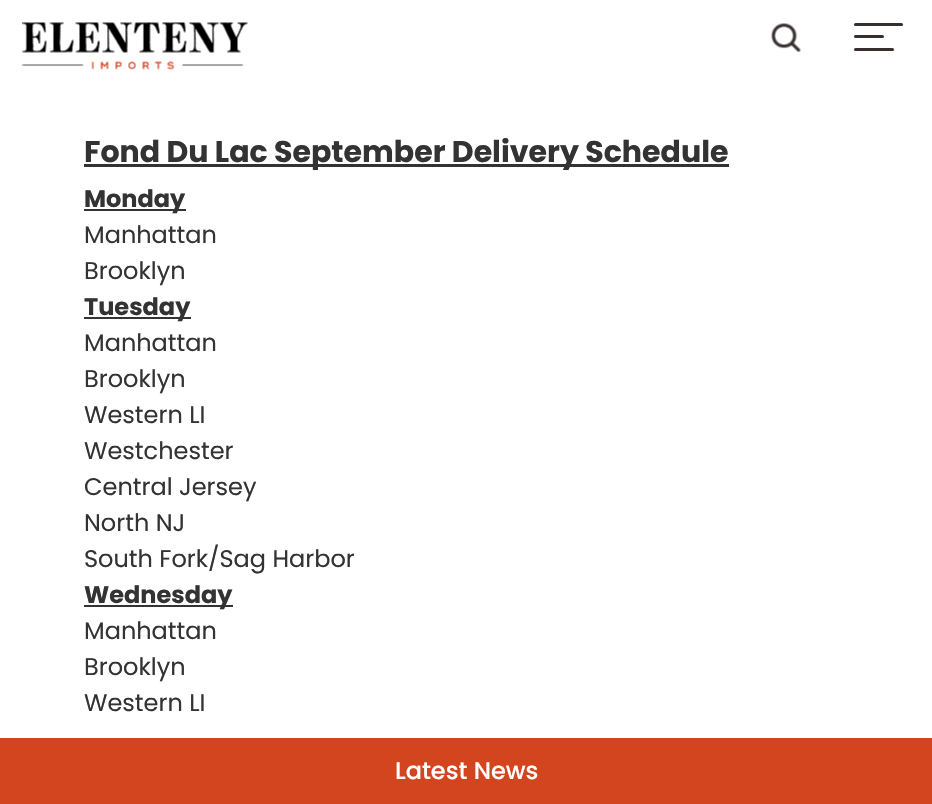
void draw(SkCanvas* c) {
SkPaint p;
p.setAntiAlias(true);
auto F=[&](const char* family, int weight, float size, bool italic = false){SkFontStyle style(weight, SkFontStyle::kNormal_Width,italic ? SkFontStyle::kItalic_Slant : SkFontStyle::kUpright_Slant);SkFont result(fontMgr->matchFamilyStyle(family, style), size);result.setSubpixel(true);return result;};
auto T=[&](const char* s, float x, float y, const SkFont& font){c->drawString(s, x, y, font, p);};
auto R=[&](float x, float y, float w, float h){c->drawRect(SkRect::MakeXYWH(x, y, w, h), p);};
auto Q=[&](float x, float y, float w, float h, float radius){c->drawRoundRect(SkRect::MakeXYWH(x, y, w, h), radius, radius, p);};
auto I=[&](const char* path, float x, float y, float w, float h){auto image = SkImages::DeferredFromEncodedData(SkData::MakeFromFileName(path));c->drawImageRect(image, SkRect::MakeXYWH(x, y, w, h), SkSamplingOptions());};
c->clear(0xffffffff);
I("1.png",22,22,226,48);
I("2.png",771,23,30,30);
p.setColor(0xff372f2d);
Q(854,23,49,3,1.5);
Q(854,35,30,3,1.5);
Q(854,48,40,3,1.5);
p.setColor(0xff333333);
R(84,164,645,3);
auto f1 = F("Poppins",700,30);
T("Fond Du Lac September Delivery Schedule",84,162,f1);
R(84,209,102,2);
auto f2 = F("Poppins",700,24);
T("Monday",84,207,f2);
auto f3 = F("Poppins",400,24);
T("Manhattan",84,243,f3);
T("Brooklyn",84,279,f3);
R(84,317,107,2);
T("Tuesday",84,315,f2);
T("Manhattan",84,351,f3);
T("Brooklyn",84,387,f3);
T("Western LI",84,423,f3);
T("Westchester",84,459,f3);
T("Central Jersey",84,495,f3);
T("North NJ",84,531,f3);
T("South Fork/Sag Harbor",84,567,f3);
R(84,605,149,2);
T("Wednesday",84,603,f2);
T("Manhattan",84,639,f3);
T("Brooklyn",84,675,f3);
T("Western LI",84,711,f3);
p.setColor(0xffd2451e);
R(0,738,932,66);
auto f4 = F("Poppins",500,24);
p.setColor(0xffffffff);
T("Latest News",395,779,f4);
}
